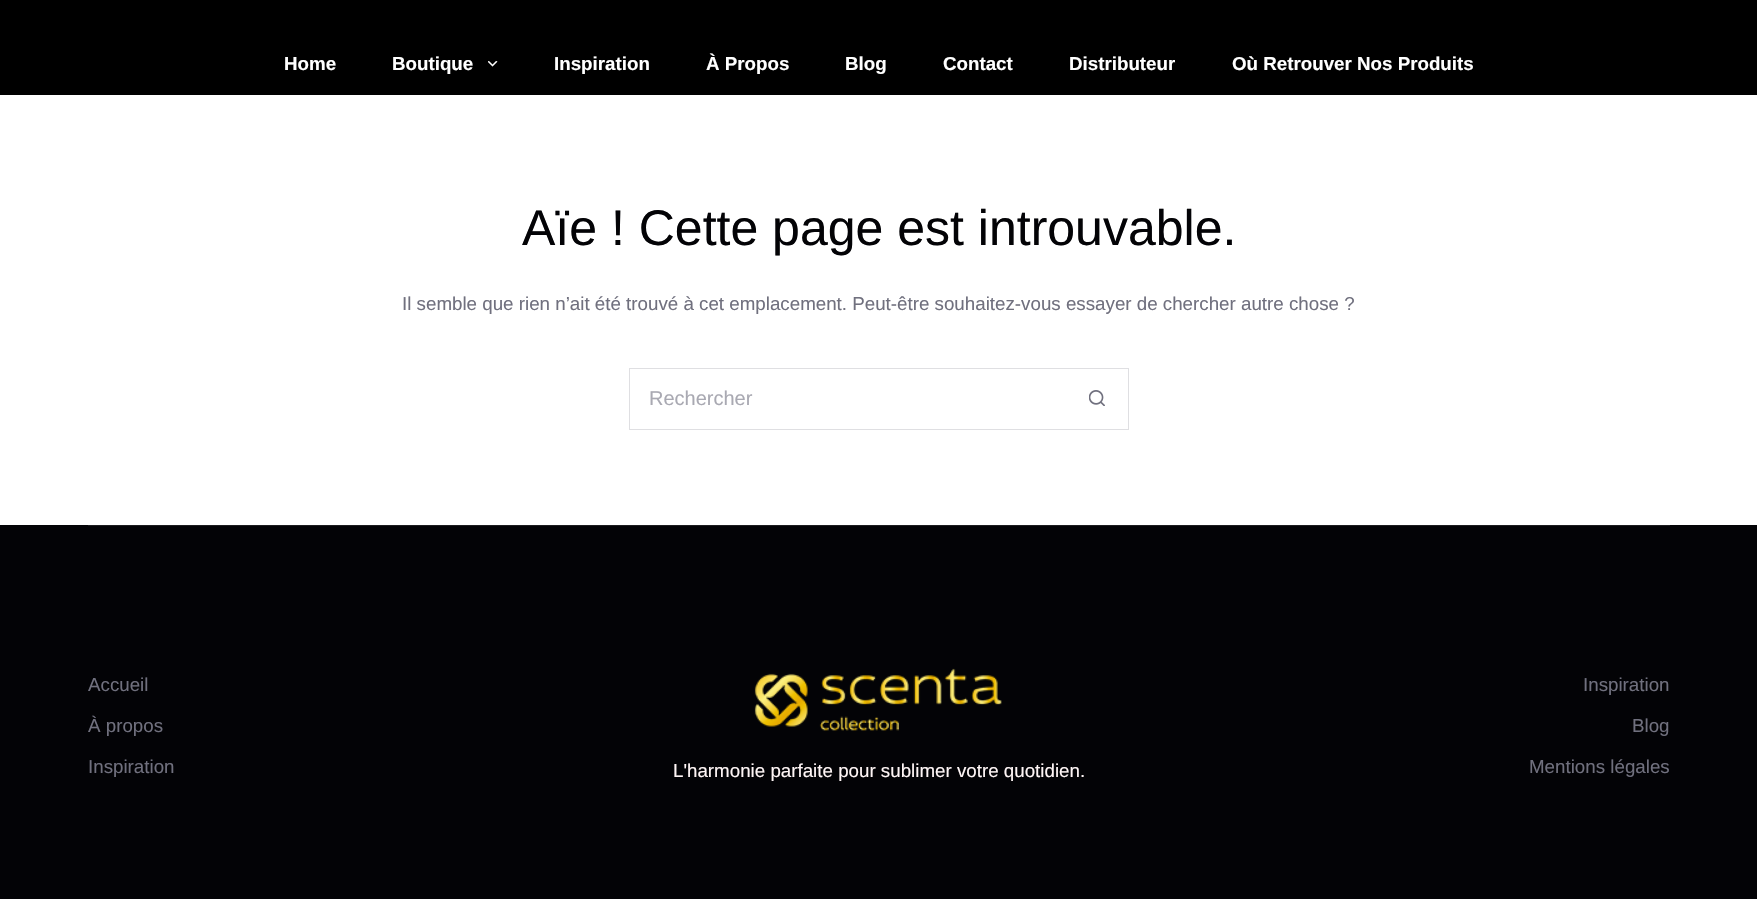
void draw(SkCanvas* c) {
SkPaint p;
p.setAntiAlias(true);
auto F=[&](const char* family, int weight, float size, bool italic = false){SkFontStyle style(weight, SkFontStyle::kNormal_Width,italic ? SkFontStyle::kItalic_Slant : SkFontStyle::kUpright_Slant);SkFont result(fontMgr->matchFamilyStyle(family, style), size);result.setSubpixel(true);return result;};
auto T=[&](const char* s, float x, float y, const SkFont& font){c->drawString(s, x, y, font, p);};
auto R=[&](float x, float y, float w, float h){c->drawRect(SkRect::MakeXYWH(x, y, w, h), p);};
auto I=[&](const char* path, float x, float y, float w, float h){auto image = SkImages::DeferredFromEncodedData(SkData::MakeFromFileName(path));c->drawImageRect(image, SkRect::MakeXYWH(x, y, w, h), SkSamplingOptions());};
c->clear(0xffffffff);
p.setColor(0xff000000);
R(0,0,1757,95);
auto f1 = F("Liberation Sans",700,18.75);
p.setColor(0xffffffff);
T("Home",284,70,f1);
T("Boutique",392,70,f1);
I("1.png",488,61,10,6);
T("Inspiration",554,70,f1);
T("À Propos",706,70,f1);
T("Blog",845,70,f1);
T("Contact",943,70,f1);
T("Distributeur",1069,70,f1);
T("Où Retrouver Nos Produits",1232,70,f1);
auto f2 = F("Liberation Sans",400,50);
p.setColor(0xff030306);
T("Aïe ! Cette page est introuvable.",522,245,f2);
auto f3 = F("Liberation Sans",400,18.75);
p.setColor(0xff70707e);
T("Il semble que rien n’ait été trouvé à cet emplacement. Peut-être souhaitez-vous essayer de chercher autre chose ?",402,310,f3);
p.setColor(0xffdfdfe2);
R(629,368,500,1);
R(629,429,437,1);
R(629,368,1,62);
auto f4 = F("Liberation Sans",400,20);
p.setColor(0xffa9a9b2);
T("Rechercher",649,405,f4);
p.setColor(0xffdfdfe2);
R(1128,368,1,62);
R(1066,429,63,1);
I("2.png",1089,390,16,16);
p.setColor(0xff030306);
R(0,525,1757,374);
p.setColor(0xff1c1c1f);
R(88,525,1582,1);
p.setColor(0xff70707e);
T("Accueil",88,691,f3);
T("À propos",88,732,f3);
T("Inspiration",88,773,f3);
I("3.png",754,668,248,63);
p.setColor(0xfffff6f6);
T("L'harmonie parfaite pour sublimer votre quotidien.",673,777,f3);
p.setColor(0xff70707e);
T("Inspiration",1583,691,f3);
T("Blog",1632,732,f3);
T("Mentions légales",1529,773,f3);
}
